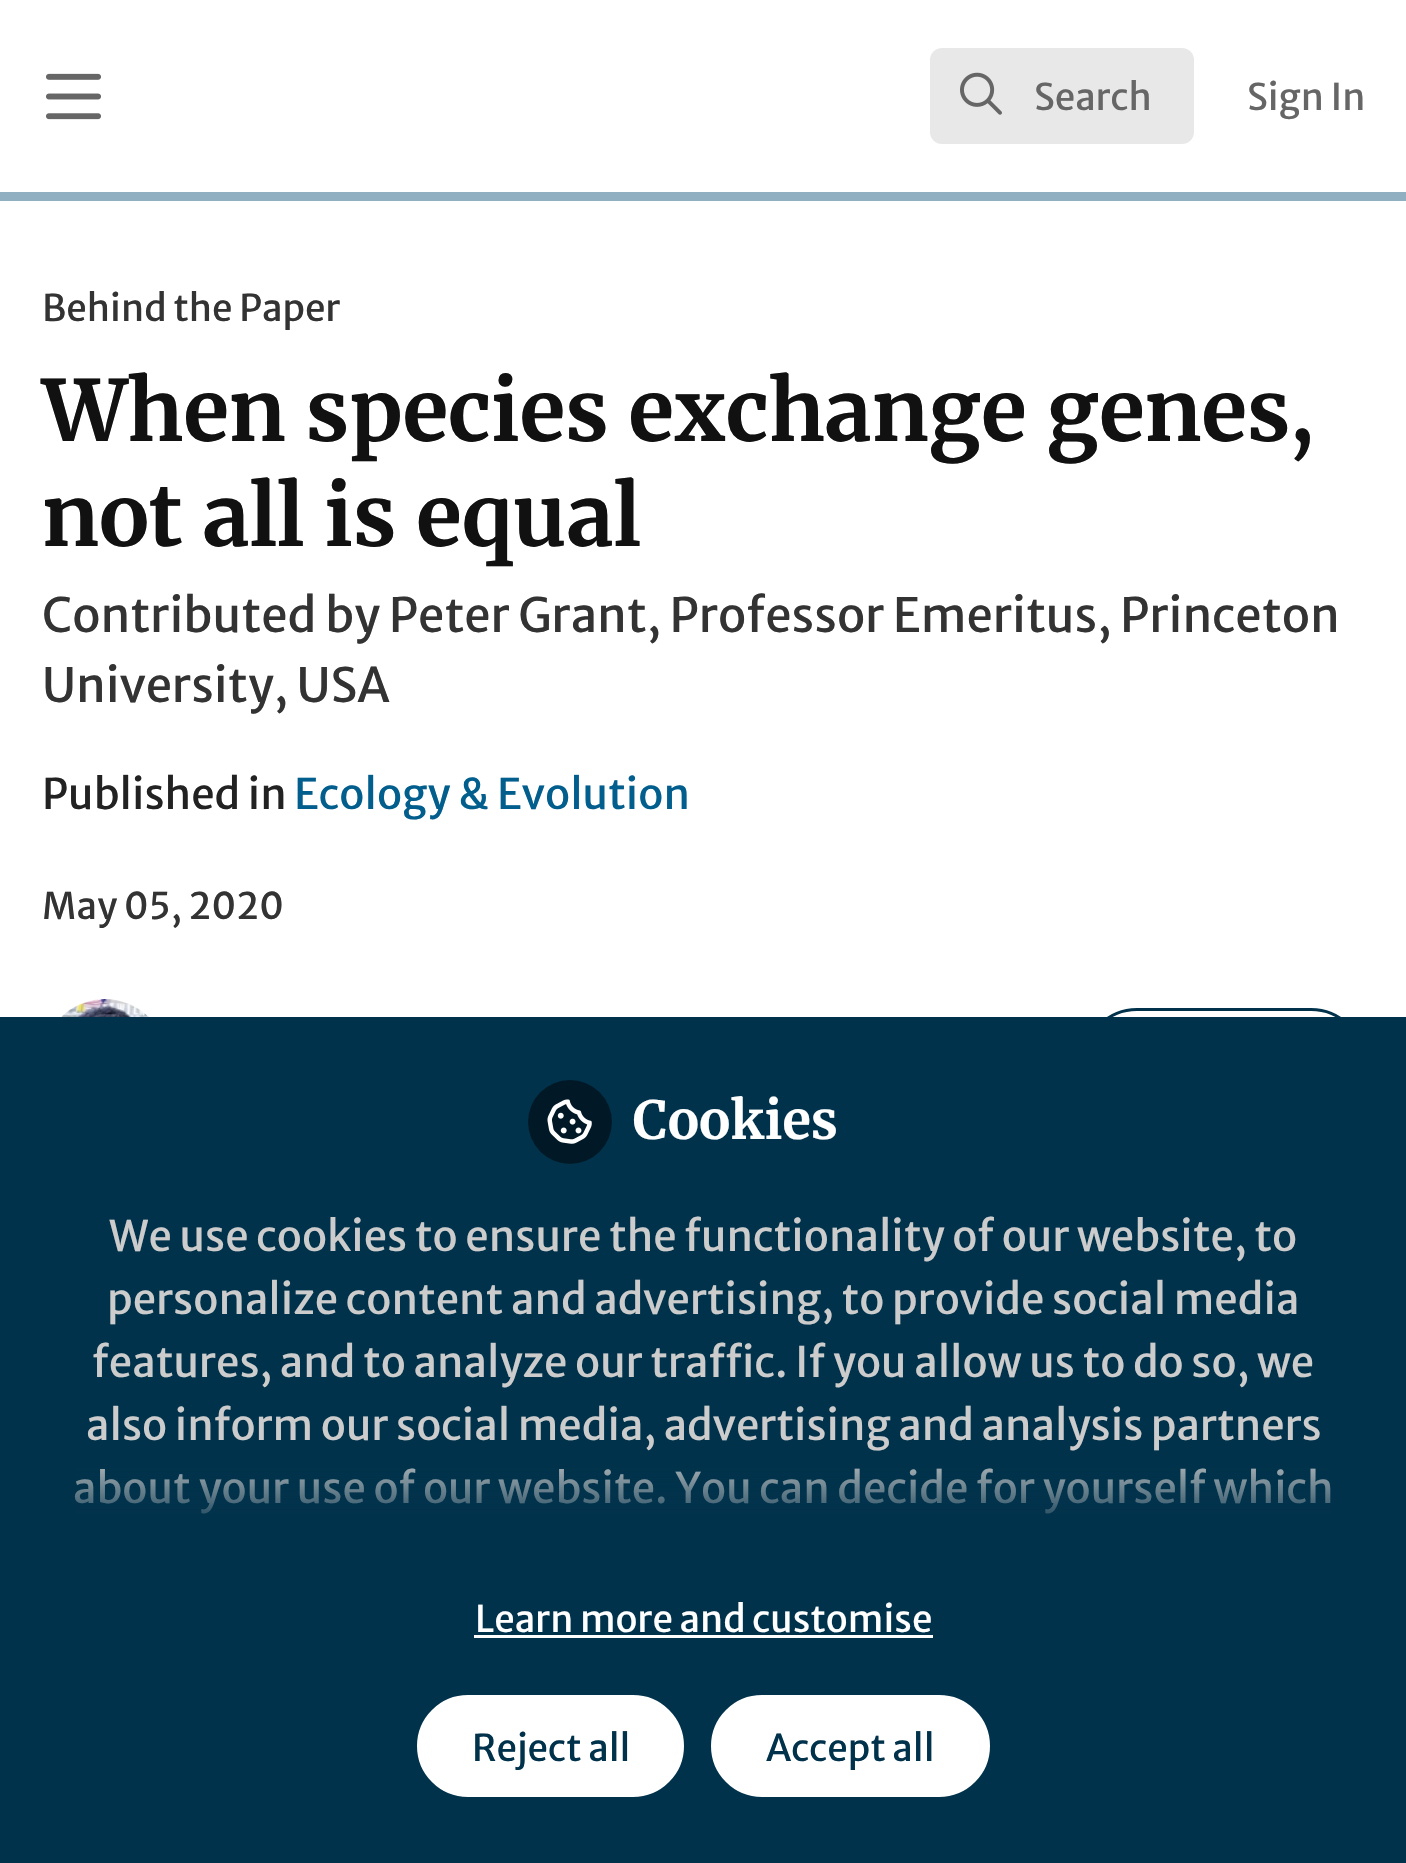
void draw(SkCanvas* c) {
SkPaint p;
p.setAntiAlias(true);
auto F=[&](const char* family, int weight, float size, bool italic = false){SkFontStyle style(weight, SkFontStyle::kNormal_Width,italic ? SkFontStyle::kItalic_Slant : SkFontStyle::kUpright_Slant);SkFont result(fontMgr->matchFamilyStyle(family, style), size);result.setSubpixel(true);return result;};
auto T=[&](const char* s, float x, float y, const SkFont& font){c->drawString(s, x, y, font, p);};
auto R=[&](float x, float y, float w, float h){c->drawRect(SkRect::MakeXYWH(x, y, w, h), p);};
auto Q=[&](float x, float y, float w, float h, float radius){c->drawRoundRect(SkRect::MakeXYWH(x, y, w, h), radius, radius, p);};
auto I=[&](const char* path, float x, float y, float w, float h){auto image = SkImages::DeferredFromEncodedData(SkData::MakeFromFileName(path));c->drawImageRect(image, SkRect::MakeXYWH(x, y, w, h), SkSamplingOptions());};
c->clear(0xffffffff);
p.setColor(0xff90b0c2);
R(0,192,1406,9);
I("1.png",46,73,55,47);
p.setColor(0xffe8e8e8);
Q(930,48,264,96,12);
I("2.png",960,72,42,43);
auto f1 = F("Merriweather Sans",400,36.75);
p.setColor(0xff666666);
T("Search",1034,110,f1);
T("Sign In",1247,110,f1);
p.setColor(0xff333333);
T("Behind the Paper",42,321,f1);
auto f2 = F("Merriweather",700,84);
p.setColor(0xff111111);
T("When species exchange genes,",42,441,f2);
T("not all is equal",42,546,f2);
auto f3 = F("Merriweather Sans",400,47.25);
p.setColor(0xff333333);
T("Contributed by Peter Grant, Professor Emeritus, Princeton",42,632,f3);
T("University, USA",42,702,f3);
auto f4 = F("Merriweather Sans",400,42);
p.setColor(0xff222222);
T("Published in",42,809,f4);
p.setColor(0xff025e8d);
T("Ecology & Evolution",294,809,f4);
p.setColor(0xff333333);
T("May 05, 2020",42,919,f1);
I("3.png",61,999,88,18);
p.setStroke(true);
p.setStrokeWidth(3);
p.setColor(0xff01324b);
c->drawRoundRect(SkRect::MakeXYWH(1084.5,1009.5,279,105),52.5,52.5,p);
p.setStroke(false);
R(0,1017,1406,846);
p.setColor(0xff011926);
c->drawCircle(570,1122,42,p);
I("4.png",547,1099,45,45);
auto f5 = F("Merriweather",700,52.5);
p.setColor(0xffffffff);
T("Cookies",633,1139,f5);
p.setColor(0xffcccccc);
T("We use cookies to ensure the functionality of our website, to",109,1251,f4);
T("personalize content and advertising, to provide social media",107,1314,f4);
T("features, and to analyze our traffic. If you allow us to do so, we",92,1377,f4);
T("also inform our social media, advertising and analysis partners",86,1440,f4);
T("about your use of our website. You can decide for yourself which",73,1503,f4);
{
const SkColor colors[] = {0xff01324b,0x0001324b};
const float stops[] = {0,1};
const SkPoint ends[] = {{704,1533}, {704,1449}};
p.setShader(SkGradientShader::MakeLinear(ends, colors, stops, 2, SkTileMode::kClamp));
p.setAlpha(255);
}
R(75,1468,1256,46);
p.setShader(nullptr);
p.setColor(0xffffffff);
T("Learn more and customise",475,1632,f1);
R(474,1635,459,3);
c->drawRoundRect(SkRect::MakeXYWH(415.5,1693.5,270,105),52.5,52.5,p);
p.setStroke(true);
p.setColor(0xff01324b);
c->drawRoundRect(SkRect::MakeXYWH(415.5,1693.5,270,105),52.5,52.5,p);
p.setStroke(false);
T("Reject all",472,1761,f1);
p.setColor(0xffffffff);
c->drawRoundRect(SkRect::MakeXYWH(709.5,1693.5,282,105),52.5,52.5,p);
p.setStroke(true);
p.setColor(0xff01324b);
c->drawRoundRect(SkRect::MakeXYWH(709.5,1693.5,282,105),52.5,52.5,p);
p.setStroke(false);
T("Accept all",766,1761,f1);
}
